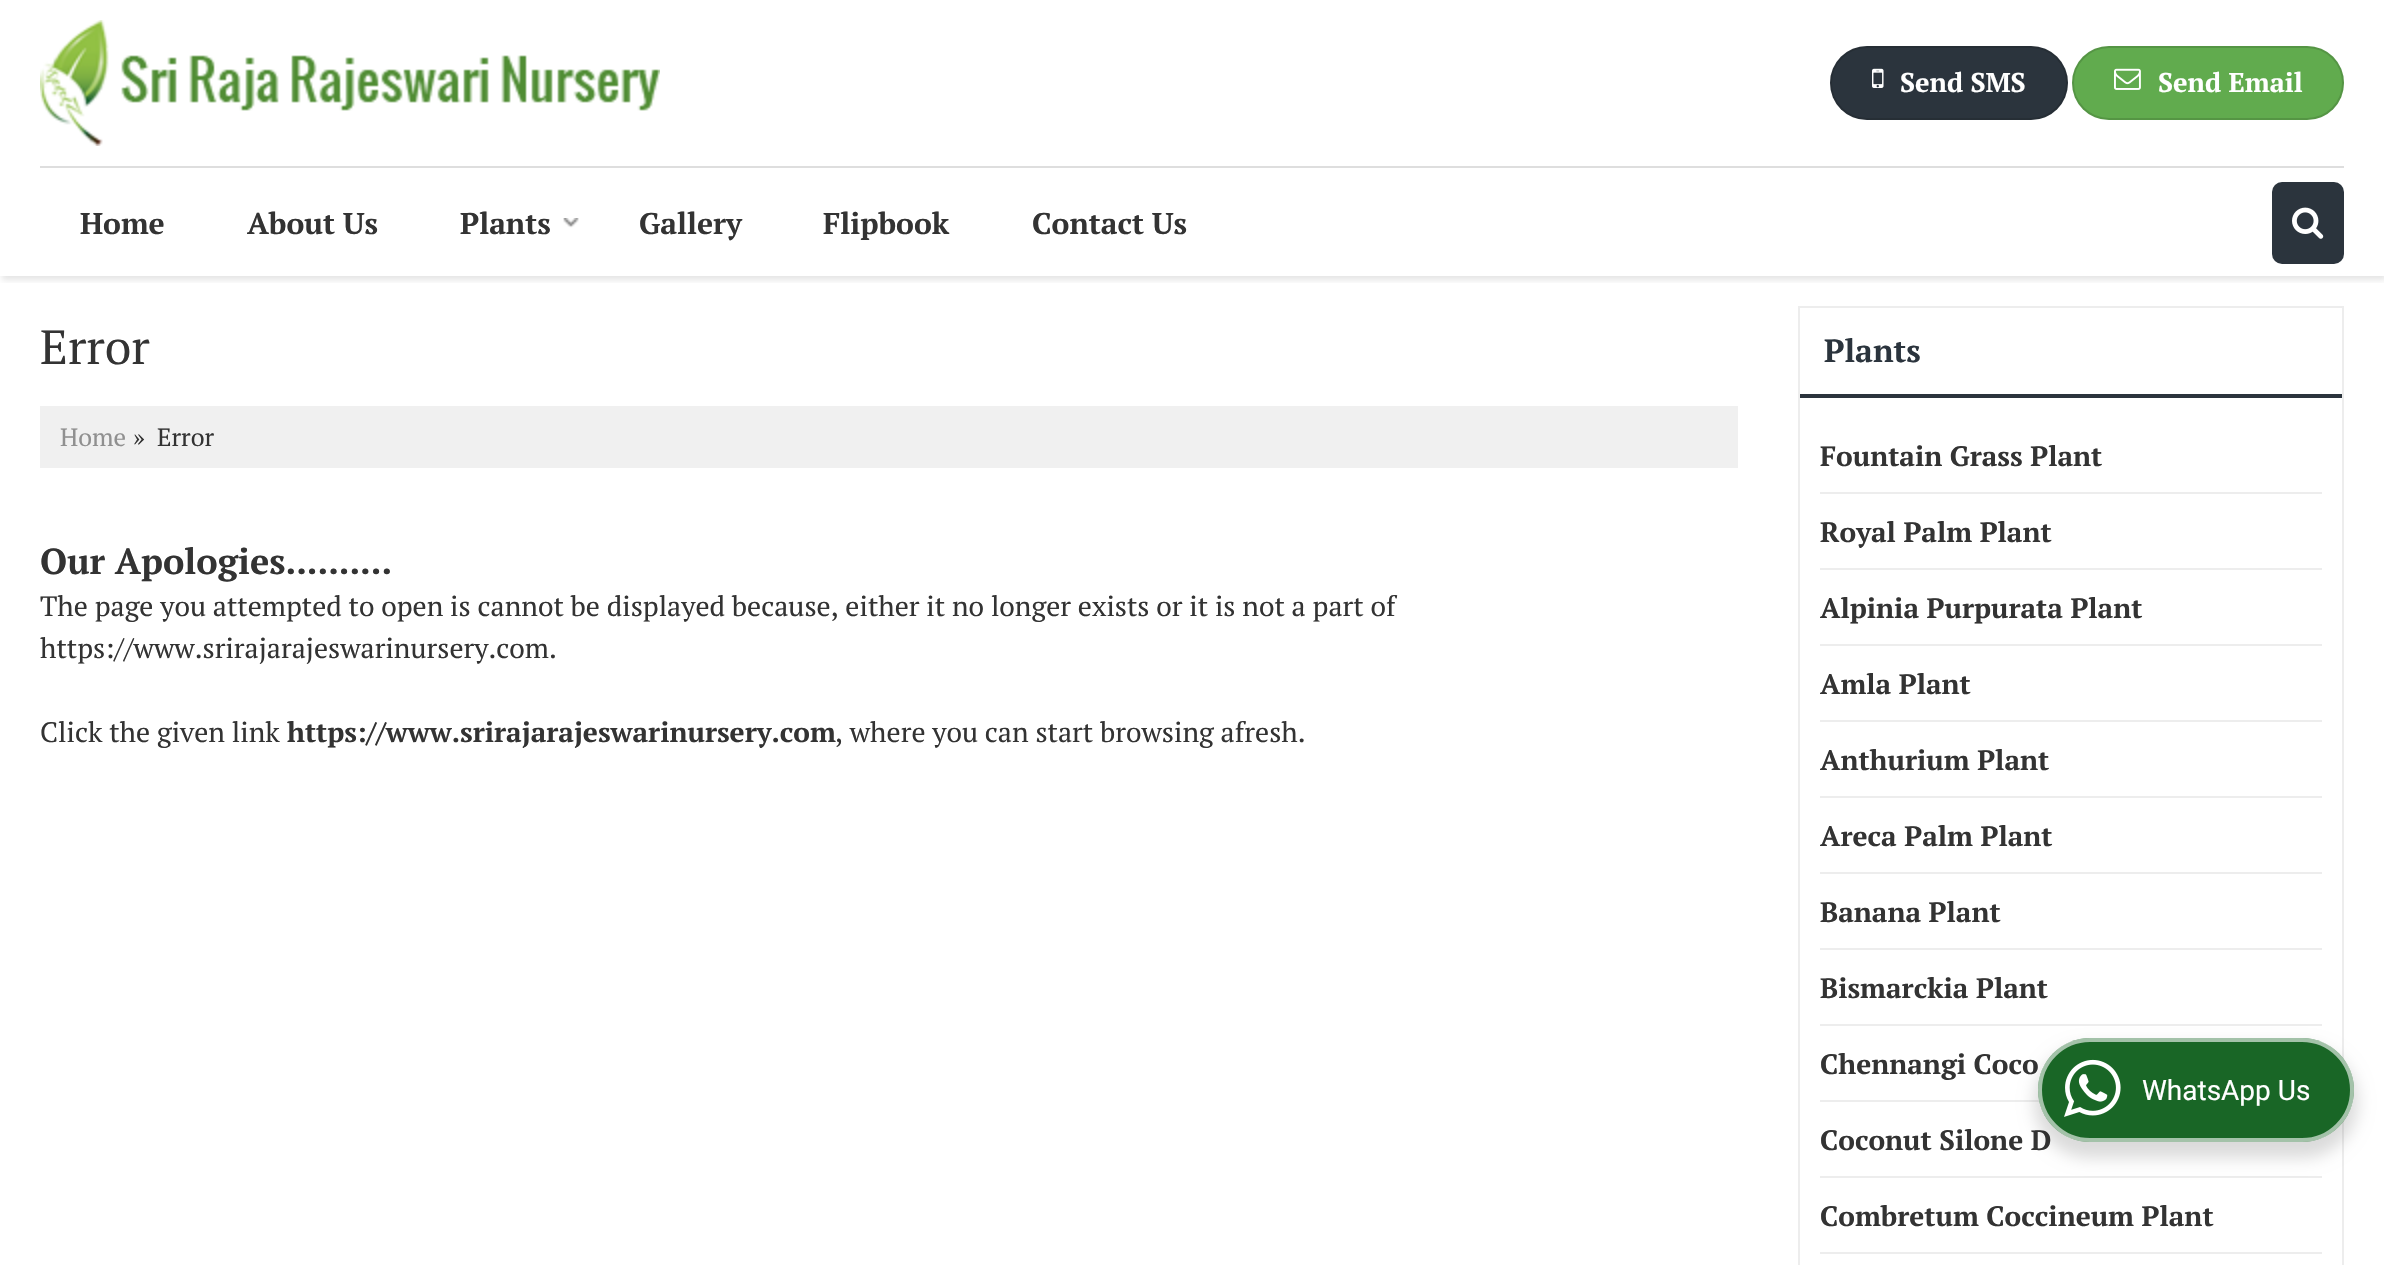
void draw(SkCanvas* c) {
SkPaint p;
p.setAntiAlias(true);
auto F=[&](const char* family, int weight, float size, bool italic = false){SkFontStyle style(weight, SkFontStyle::kNormal_Width,italic ? SkFontStyle::kItalic_Slant : SkFontStyle::kUpright_Slant);SkFont result(fontMgr->matchFamilyStyle(family, style), size);result.setSubpixel(true);return result;};
auto T=[&](const char* s, float x, float y, const SkFont& font){c->drawString(s, x, y, font, p);};
auto R=[&](float x, float y, float w, float h){c->drawRect(SkRect::MakeXYWH(x, y, w, h), p);};
auto Q=[&](float x, float y, float w, float h, float radius){c->drawRoundRect(SkRect::MakeXYWH(x, y, w, h), radius, radius, p);};
auto I=[&](const char* path, float x, float y, float w, float h){auto image = SkImages::DeferredFromEncodedData(SkData::MakeFromFileName(path));c->drawImageRect(image, SkRect::MakeXYWH(x, y, w, h), SkSamplingOptions());};
c->clear(0xffffffff);
c->save();
c->clipRect(SkRect::MakeXYWH(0,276,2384,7));
p.setColor(0x1a000000);
p.setMaskFilter(SkMaskFilter::MakeBlur(kNormal_SkBlurStyle, 3));
c->drawRect(SkRect::MakeXYWH(2,4,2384,276),p);
p.setMaskFilter(nullptr);
c->restore();
I("1.png",40,20,620,126);
p.setColor(0xff2b343d);
Q(1830,46,238,74,37);
p.setStroke(true);
p.setStrokeWidth(2);
p.setColor(0x21000000);
c->drawRoundRect(SkRect::MakeXYWH(1831,47,236,72),36,36,p);
I("2.png",1872,68,12,20);
auto f1 = F("PT Serif",700,27);
p.setStroke(false);
p.setColor(0xffffffff);
T("Send SMS",1900,92,f1);
p.setColor(0xff61ab4e);
Q(2072,46,272,74,37);
p.setStroke(true);
p.setColor(0x21000000);
c->drawRoundRect(SkRect::MakeXYWH(2073,47,270,72),36,36,p);
I("3.png",2114,68,27,22);
p.setStroke(false);
p.setColor(0xffffffff);
T("Send Email",2158,92,f1);
p.setColor(0xffdedede);
R(40,166,2304,2);
auto f2 = F("PT Serif",700,30);
p.setColor(0xff333333);
T("Home",80,234,f2);
T("About Us",247,234,f2);
T("Plants",460,234,f2);
I("4.png",563,218,16,10);
T("Gallery",639,234,f2);
T("Flipbook",823,234,f2);
T("Contact Us",1032,234,f2);
p.setColor(0xff2b343d);
Q(2272,182,72,82,10);
I("5.png",2292,207,32,32);
auto f3 = F("PT Serif",400,48);
p.setColor(0xff333333);
T("Error",40,364,f3);
p.setColor(0xfff0f0f0);
R(40,406,1698,62);
auto f4 = F("PT Serif",400,25);
p.setColor(0xff909090);
T("Home",60,446,f4);
p.setColor(0xff333333);
T("»  Error",133,446,f4);
auto f5 = F("PT Serif",700,36);
T("Our Apologies..........",40,574,f5);
auto f6 = F("PT Serif",400,28);
T("The page you attempted to open is cannot be displayed because, either it no longer exists or it is not a part of",40,616,f6);
T("https://www.srirajarajeswarinursery.com.",40,658,f6);
T("Click the given link",40,742,f6);
auto f7 = F("PT Serif",700,28);
T("https://www.srirajarajeswarinursery.com",287,742,f7);
T(", where you can start browsing afresh.",835,742,f6);
p.setStroke(true);
p.setColor(0xffededed);
c->drawRect(SkRect::MakeXYWH(1799,307,544,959),p);
p.setStroke(false);
p.setColor(0xff2b343d);
R(1800,394,542,4);
auto f8 = F("PT Serif",700,32);
T("Plants",1824,362,f8);
p.setColor(0xffededed);
R(1820,492,502,2);
p.setColor(0xff333333);
T("Fountain Grass Plant",1820,466,f7);
p.setColor(0xffededed);
R(1820,568,502,2);
p.setColor(0xff333333);
T("Royal Palm Plant",1820,542,f7);
p.setColor(0xffededed);
R(1820,644,502,2);
p.setColor(0xff333333);
T("Alpinia Purpurata Plant",1820,618,f7);
p.setColor(0xffededed);
R(1820,720,502,2);
p.setColor(0xff333333);
T("Amla Plant",1820,694,f7);
p.setColor(0xffededed);
R(1820,796,502,2);
p.setColor(0xff333333);
T("Anthurium Plant",1820,770,f7);
p.setColor(0xffededed);
R(1820,872,502,2);
p.setColor(0xff333333);
T("Areca Palm Plant",1820,846,f7);
p.setColor(0xffededed);
R(1820,948,502,2);
p.setColor(0xff333333);
T("Banana Plant",1820,922,f7);
p.setColor(0xffededed);
R(1820,1024,502,2);
p.setColor(0xff333333);
T("Bismarckia Plant",1820,998,f7);
p.setColor(0xffededed);
R(1820,1100,220,2);
p.setColor(0xff333333);
T("Chennangi Coco",1820,1074,f7);
p.setColor(0xffededed);
R(1820,1176,502,2);
p.setColor(0xff333333);
T("Coconut Silone D",1820,1150,f7);
p.setColor(0xffededed);
R(1820,1252,502,2);
p.setColor(0xff333333);
T("Combretum Coccineum Plant",1820,1226,f7);
p.setColor(0x24000000);
p.setMaskFilter(SkMaskFilter::MakeBlur(kNormal_SkBlurStyle, 8));
c->drawRoundRect(SkRect::MakeXYWH(2034,1046,324,112),56,56,p);
p.setMaskFilter(nullptr);
p.setColor(0xff196626);
Q(2038,1038,316,104,52);
p.setStroke(true);
p.setStrokeWidth(4);
p.setColor(0x99ffffff);
c->drawRoundRect(SkRect::MakeXYWH(2040,1040,312,100),50,50,p);
I("6.png",2064,1059,57,58);
auto f9 = F("Roboto",400,28);
p.setStroke(false);
p.setColor(0xffffffff);
T("WhatsApp Us",2142,1100,f9);
}
